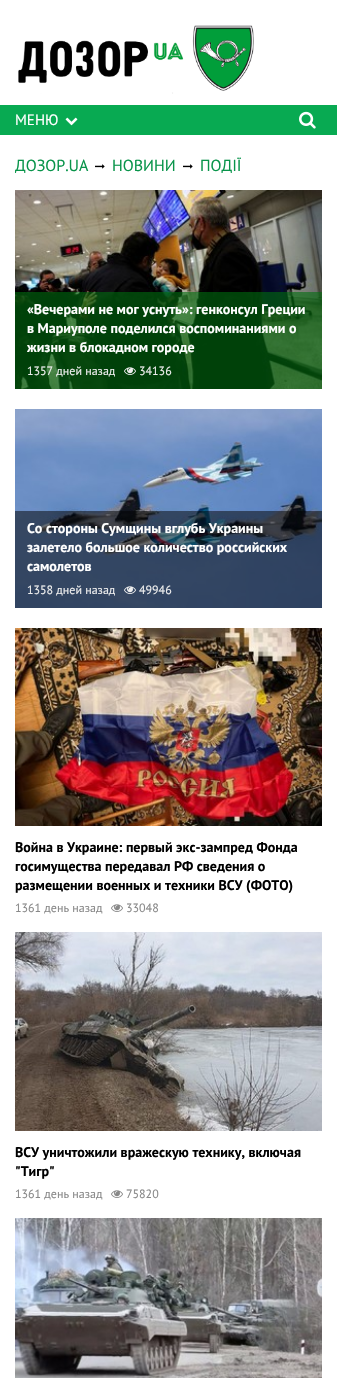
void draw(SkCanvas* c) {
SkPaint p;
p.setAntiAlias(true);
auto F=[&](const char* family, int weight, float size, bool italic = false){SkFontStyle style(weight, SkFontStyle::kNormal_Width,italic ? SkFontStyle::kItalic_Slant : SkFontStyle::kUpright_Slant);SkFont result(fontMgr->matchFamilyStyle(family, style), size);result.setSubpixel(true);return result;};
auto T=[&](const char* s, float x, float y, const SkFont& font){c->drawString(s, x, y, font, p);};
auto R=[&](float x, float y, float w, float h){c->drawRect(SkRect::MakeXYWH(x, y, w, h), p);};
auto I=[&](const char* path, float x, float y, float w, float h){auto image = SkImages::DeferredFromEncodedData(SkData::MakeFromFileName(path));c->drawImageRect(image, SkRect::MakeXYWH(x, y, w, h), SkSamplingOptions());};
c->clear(0xffffffff);
I("1.png",18,25,236,69);
p.setColor(0xff08aa52);
R(0,105,337,30);
auto f1 = F("PT Sans",400,15);
p.setColor(0xffffffff);
T("МЕНЮ",15,125,f1);
I("2.png",65,117,13,9);
I("3.png",299,111,17,18);
auto f2 = F("PT Sans",400,16);
p.setColor(0xff08944a);
T("ДОЗОР.UA",15,171,f2);
I("4.png",95,164,10,5);
T("НОВИНИ",112,171,f2);
I("4.png",183,164,10,5);
T("ПОДІЇ",200,171,f2);
I("5.png",15,190,307,199);
p.setColor(0x99006c0f);
R(15,292,307,97);
auto f3 = F("PT Sans",700,14);
p.setColor(0xffffffff);
T("«Вечерами не мог уснуть»: генконсул Греции",27,314,f3);
T("в Мариуполе поделился воспоминаниями о",27,333,f3);
T("жизни в блокадном городе",27,352,f3);
auto f4 = F("PT Sans",400,12);
p.setColor(0xffeeeeee);
T("1357 дней назад",27,375,f4);
I("6.png",124,367,12,8);
T("34136",139,375,f4);
I("7.png",15,409,307,199);
p.setColor(0x80000000);
R(15,511,307,97);
p.setColor(0xffffffff);
T("Со стороны Сумщины вглубь Украины",27,533,f3);
T("залетело большое количество российских",27,552,f3);
T("самолетов",27,571,f3);
p.setColor(0xffeeeeee);
T("1358 дней назад",27,594,f4);
I("8.png",124,586,12,8);
T("49946",139,594,f4);
I("9.png",15,628,307,198);
p.setColor(0xff000000);
T("Война в Украине: первый экс-зампред Фонда",15,852,f3);
T("госимущества передавал РФ сведения о",15,871,f3);
T("размещении военных и техники ВСУ (ФОТО)",15,890,f3);
p.setColor(0xff888888);
T("1361 день назад",15,912,f4);
I("10.png",111,904,12,8);
T("33048",126,912,f4);
I("11.png",15,932,307,199);
p.setColor(0xff000000);
T("ВСУ уничтожили вражескую технику, включая",15,1157,f3);
T("\"Тигр\"",15,1176,f3);
p.setColor(0xff888888);
T("1361 день назад",15,1198,f4);
I("10.png",111,1190,12,8);
T("75820",126,1198,f4);
I("12.png",15,1218,307,160);
}
